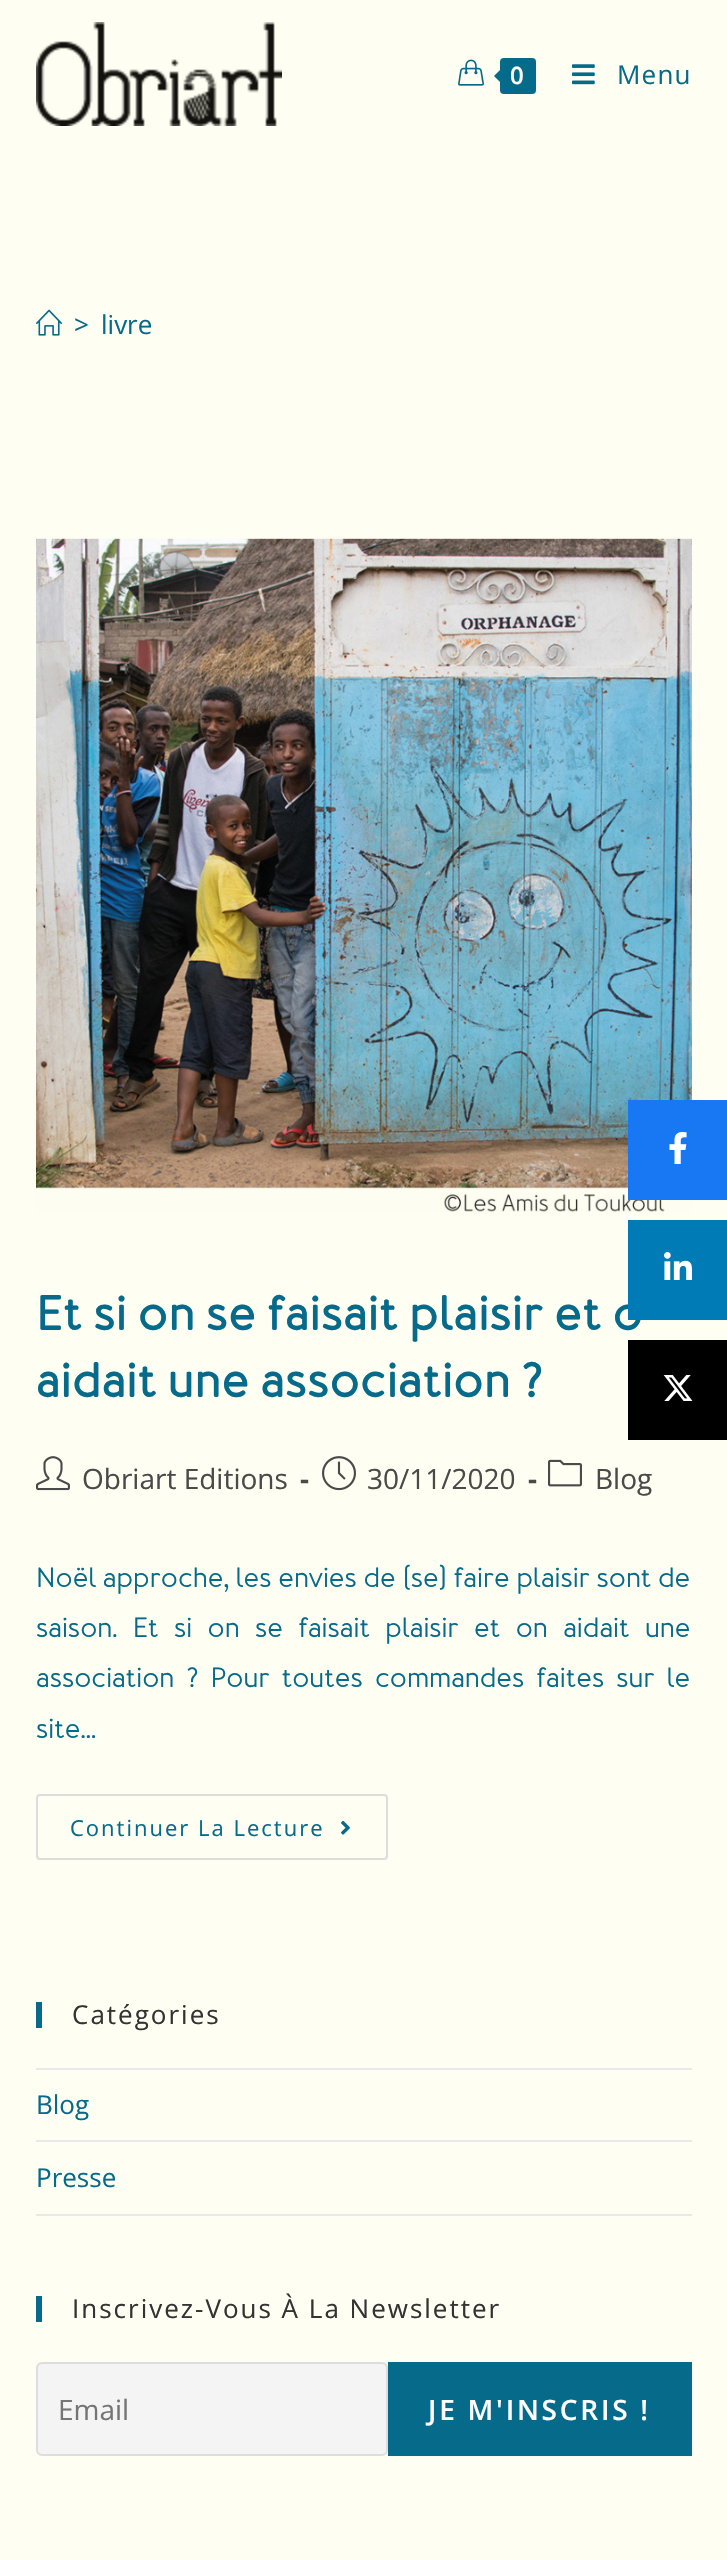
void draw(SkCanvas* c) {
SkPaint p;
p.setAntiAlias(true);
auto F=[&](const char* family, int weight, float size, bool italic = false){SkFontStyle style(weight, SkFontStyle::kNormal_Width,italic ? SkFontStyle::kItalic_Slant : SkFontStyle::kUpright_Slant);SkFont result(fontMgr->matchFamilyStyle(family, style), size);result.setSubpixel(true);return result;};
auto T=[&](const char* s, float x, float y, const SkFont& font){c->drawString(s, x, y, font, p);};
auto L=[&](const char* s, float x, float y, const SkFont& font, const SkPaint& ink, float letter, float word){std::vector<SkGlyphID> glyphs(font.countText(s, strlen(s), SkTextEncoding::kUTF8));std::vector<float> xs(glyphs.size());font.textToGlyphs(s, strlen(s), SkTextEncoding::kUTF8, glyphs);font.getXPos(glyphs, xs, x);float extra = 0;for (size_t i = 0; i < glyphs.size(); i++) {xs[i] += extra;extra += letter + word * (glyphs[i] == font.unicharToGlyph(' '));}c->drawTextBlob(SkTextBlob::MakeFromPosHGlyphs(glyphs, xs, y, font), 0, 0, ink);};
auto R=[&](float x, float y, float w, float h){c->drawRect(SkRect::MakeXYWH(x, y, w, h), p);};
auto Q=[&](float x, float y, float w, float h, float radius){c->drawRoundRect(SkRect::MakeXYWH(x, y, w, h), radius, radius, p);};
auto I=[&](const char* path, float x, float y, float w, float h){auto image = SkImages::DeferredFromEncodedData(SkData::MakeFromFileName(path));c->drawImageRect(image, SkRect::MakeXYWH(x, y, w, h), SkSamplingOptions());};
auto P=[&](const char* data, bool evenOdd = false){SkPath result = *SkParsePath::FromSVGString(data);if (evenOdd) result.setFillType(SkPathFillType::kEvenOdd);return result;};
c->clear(0xfffffef2);
I("1.png",36,22,246,104);
I("2.png",458,59,26,27);
p.setColor(0xff066b8b);
Q(500,58,36,36,4);
c->drawPath(P("M504 66v20l-10-10z"),p);
auto f1 = F("Open Sans",600,24);
p.setColor(0xffffffff);
L("0",510,84,f1,p,1.2,0);
I("3.png",572,64,23,21);
auto f2 = F("Open Sans",400,26);
p.setColor(0xff066b8b);
L("Menu",617,84,f2,p,1.2,0);
I("4.png",36,309,26,27);
T(">",74,334,f2);
T("livre",101,334,f2);
I("5.png",36,538,656,674);
auto f3 = F("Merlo",700,48);
L("Et si on se faisait plaisir et o",36,1330,f3,p,1.2,0);
L("aidait une association ?",36,1397,f3,p,1.2,0);
I("6.png",36,1456,34,35);
auto f4 = F("Open Sans",400,28);
p.setColor(0xff4a4a4a);
T("Obriart Editions",82,1489,f4);
auto f5 = F("Open Sans",700,28);
T("-",300,1489,f5);
I("7.png",322,1456,34,35);
T("30/11/2020",367,1489,f4);
T("-",528,1489,f5);
I("8.png",548,1459,34,28);
T("Blog",595,1489,f4);
auto f6 = F("Merlo",500,28);
p.setColor(0xff066b8b);
L("Noël approche, les envies de (se) faire plaisir sont de",36,1587,f6,p,0,1);
L("saison. Et si on se faisait plaisir et on aidait une",36,1637,f6,p,0,9.75);
L("association ? Pour toutes commandes faites sur le",36,1687,f6,p,0,6.5);
T("site…",36,1738,f6);
p.setStroke(true);
p.setStrokeWidth(2);
p.setColor(0xffdddddd);
c->drawRoundRect(SkRect::MakeXYWH(37,1795,350,64),3,3,p);
auto f7 = F("Open Sans",400,22);
p.setStroke(false);
p.setColor(0xff066b8b);
L("Continuer La Lecture",70,1836,f7,p,2,0);
I("9.png",341,1820,9,15);
R(36,2002,6,26);
p.setColor(0xff333333);
L("Catégories",72,2024,f2,p,2,0);
p.setColor(0xffe9e9e9);
R(36,2068,656,2);
R(36,2140,656,2);
p.setColor(0xff066b8b);
T("Blog",36,2114,f2);
p.setColor(0xffe9e9e9);
R(36,2214,656,2);
p.setColor(0xff066b8b);
T("Presse",36,2187,f2);
R(36,2296,6,26);
p.setColor(0xff333333);
L("Inscrivez-Vous À La Newsletter",72,2318,f2,p,2,0);
p.setColor(0xfff4f4f4);
c->drawRoundRect(SkRect::MakeXYWH(37,2363,350,92),5,5,p);
p.setStroke(true);
p.setColor(0xffdddddd);
c->drawRoundRect(SkRect::MakeXYWH(37,2363,350,92),5,5,p);
p.setStroke(false);
p.setColor(0xff757575);
T("Email",58,2420,f4);
p.setColor(0xff066b8b);
R(388,2362,304,94);
auto f8 = F("Open Sans",600,28);
p.setColor(0xffffffff);
L("JE M'INSCRIS !",428,2420,f8,p,2.75,0);
p.setColor(0xff1877f2);
R(628,1100,99,100);
I("10.png",669,1132,18,32);
p.setColor(0xff007bb6);
R(628,1220,99,100);
I("11.png",664,1252,28,28);
p.setColor(0xff000000);
R(628,1340,99,100);
I("12.png",663,1375,30,26);
}
